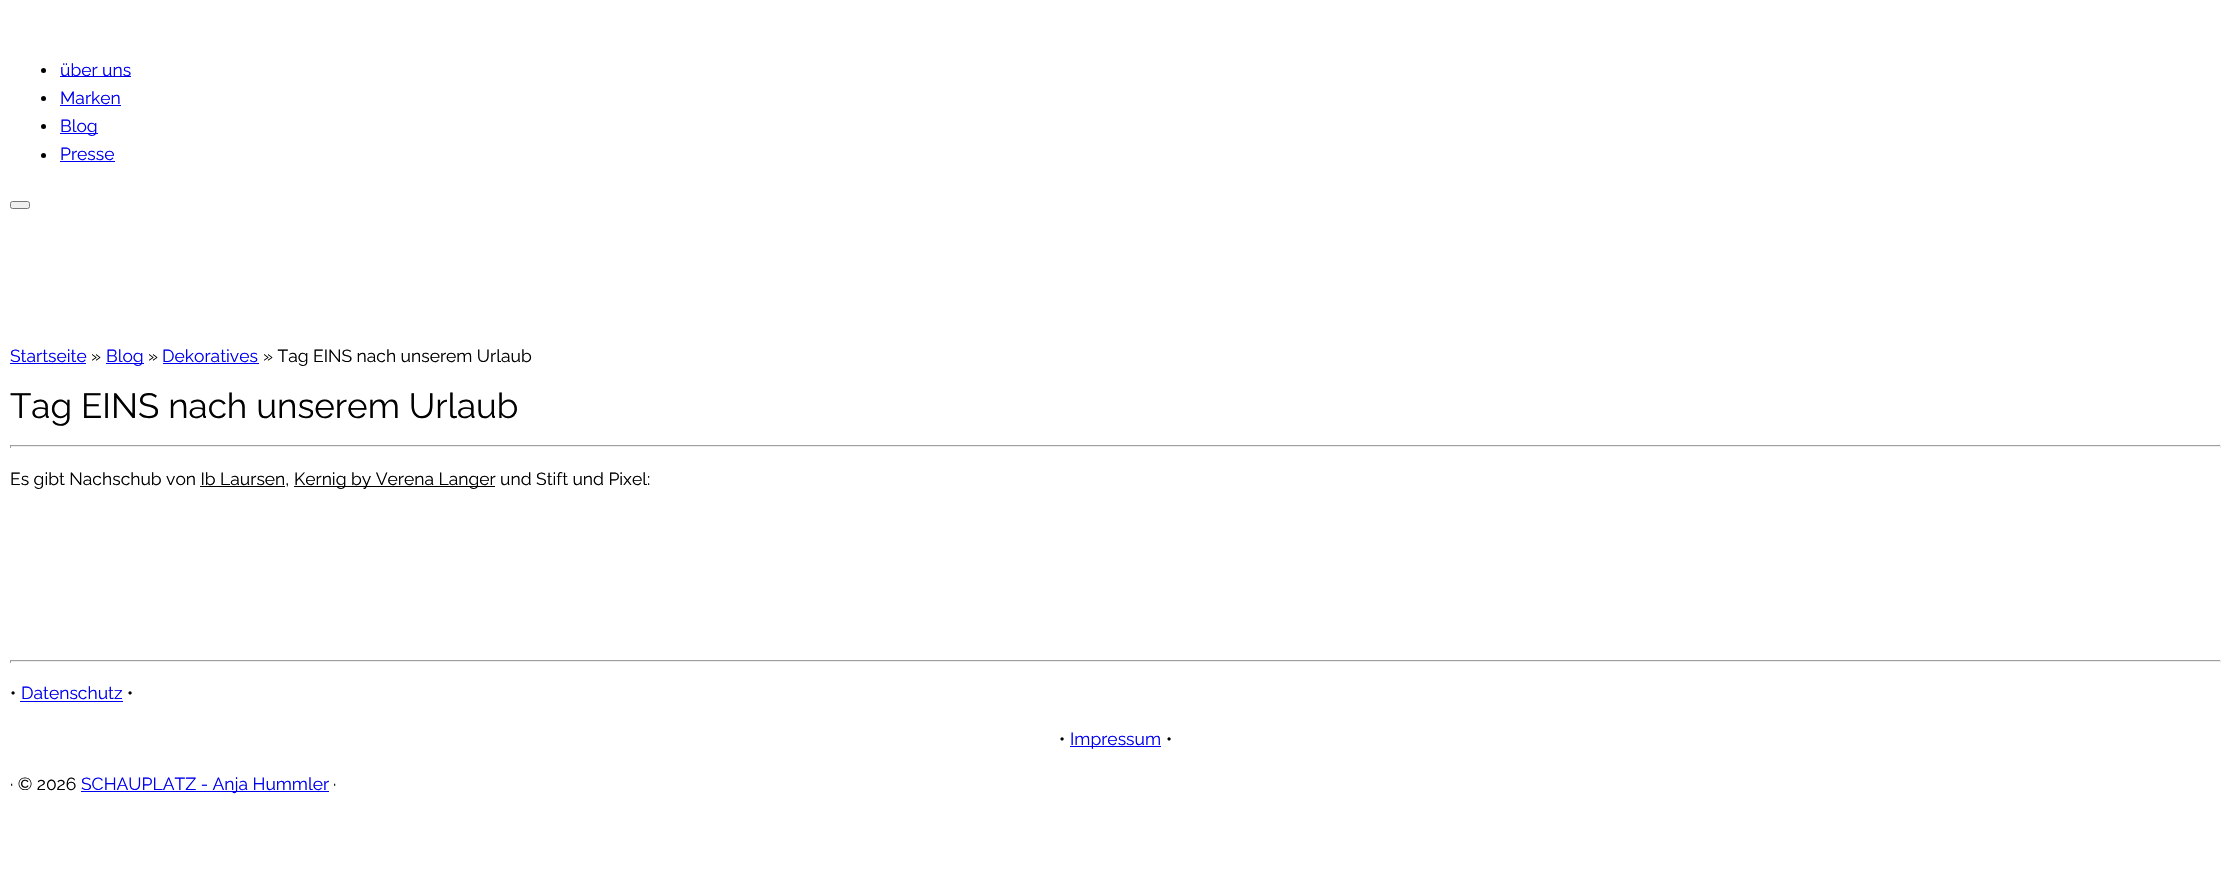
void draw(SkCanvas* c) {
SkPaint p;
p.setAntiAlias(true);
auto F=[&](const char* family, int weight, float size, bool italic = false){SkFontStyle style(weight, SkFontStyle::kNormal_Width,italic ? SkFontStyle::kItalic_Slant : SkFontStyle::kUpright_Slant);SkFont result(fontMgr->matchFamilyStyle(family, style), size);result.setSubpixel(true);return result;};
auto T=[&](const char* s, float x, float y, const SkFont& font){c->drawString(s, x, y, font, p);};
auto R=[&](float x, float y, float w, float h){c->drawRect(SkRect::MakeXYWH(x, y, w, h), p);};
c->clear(0xffffffff);
p.setColor(0xff000000);
c->drawCircle(43.5,70.5,2.5,p);
p.setColor(0xff0000ee);
R(60,76,71,1);
auto f1 = F("Raleway",400,17.5);
T("über uns",60,76,f1);
p.setColor(0xff000000);
c->drawCircle(43.5,98.5,2.5,p);
p.setColor(0xff0000ee);
T("Marken",60,104,f1);
R(60,105,61,1);
p.setColor(0xff000000);
c->drawCircle(43.5,126.5,2.5,p);
p.setColor(0xff0000ee);
R(60,133,38,1);
T("Blog",60,132,f1);
p.setColor(0xff000000);
c->drawCircle(43.5,155.5,2.5,p);
p.setColor(0xff0000ee);
T("Presse",60,160,f1);
R(60,161,55,1);
p.setColor(0xffefefef);
c->drawRoundRect(SkRect::MakeXYWH(10.5,201.5,19,7),2,2,p);
p.setStroke(true);
p.setStrokeWidth(1);
p.setColor(0xff767676);
c->drawRoundRect(SkRect::MakeXYWH(10.5,201.5,19,7),2,2,p);
p.setStroke(false);
p.setColor(0xff0000ee);
T("Startseite",10,362,f1);
R(10,363,76,1);
p.setColor(0xff000000);
T("»",91,362,f1);
p.setColor(0xff0000ee);
R(106,363,38,1);
T("Blog",106,362,f1);
p.setColor(0xff000000);
T("»",148,362,f1);
p.setColor(0xff0000ee);
T("Dekoratives",162,362,f1);
R(163,363,96,1);
p.setColor(0xff000000);
T("» Tag EINS nach unserem Urlaub",263,362,f1);
auto f2 = F("Raleway",400,35);
T("Tag EINS nach unserem Urlaub",10,418,f2);
p.setColor(0xff9f9f9f);
R(10,445,2211,1);
p.setColor(0xffeeeeee);
R(2220,445,1,3);
R(10,446,2211,1);
p.setColor(0xff9f9f9f);
R(10,445,1,3);
p.setColor(0xff000000);
T("Es gibt Nachschub von Ib Laursen,",10,485,f1);
R(294,486,201,1);
T("Kernig by Verena Langer und Stift und Pixel:",294,485,f1);
R(200,486,85,1);
p.setColor(0xff9f9f9f);
R(10,660,2211,1);
p.setColor(0xffeeeeee);
R(2220,660,1,3);
R(10,661,2211,1);
p.setColor(0xff9f9f9f);
R(10,660,1,3);
p.setColor(0xff000000);
T("•",10,699,f1);
p.setColor(0xff0000ee);
T("Datenschutz",21,699,f1);
R(20,701,103,1);
p.setColor(0xff000000);
T("•",127,699,f1);
T("•",1059,745,f1);
p.setColor(0xff0000ee);
R(1070,746,91,1);
T("Impressum",1070,745,f1);
p.setColor(0xff000000);
T("•",1166,745,f1);
T("· © 2026",10,790,f1);
p.setColor(0xff0000ee);
R(81,791,248,1);
T("SCHAUPLATZ - Anja Hummler",81,790,f1);
p.setColor(0xff000000);
T("·",333,790,f1);
}
